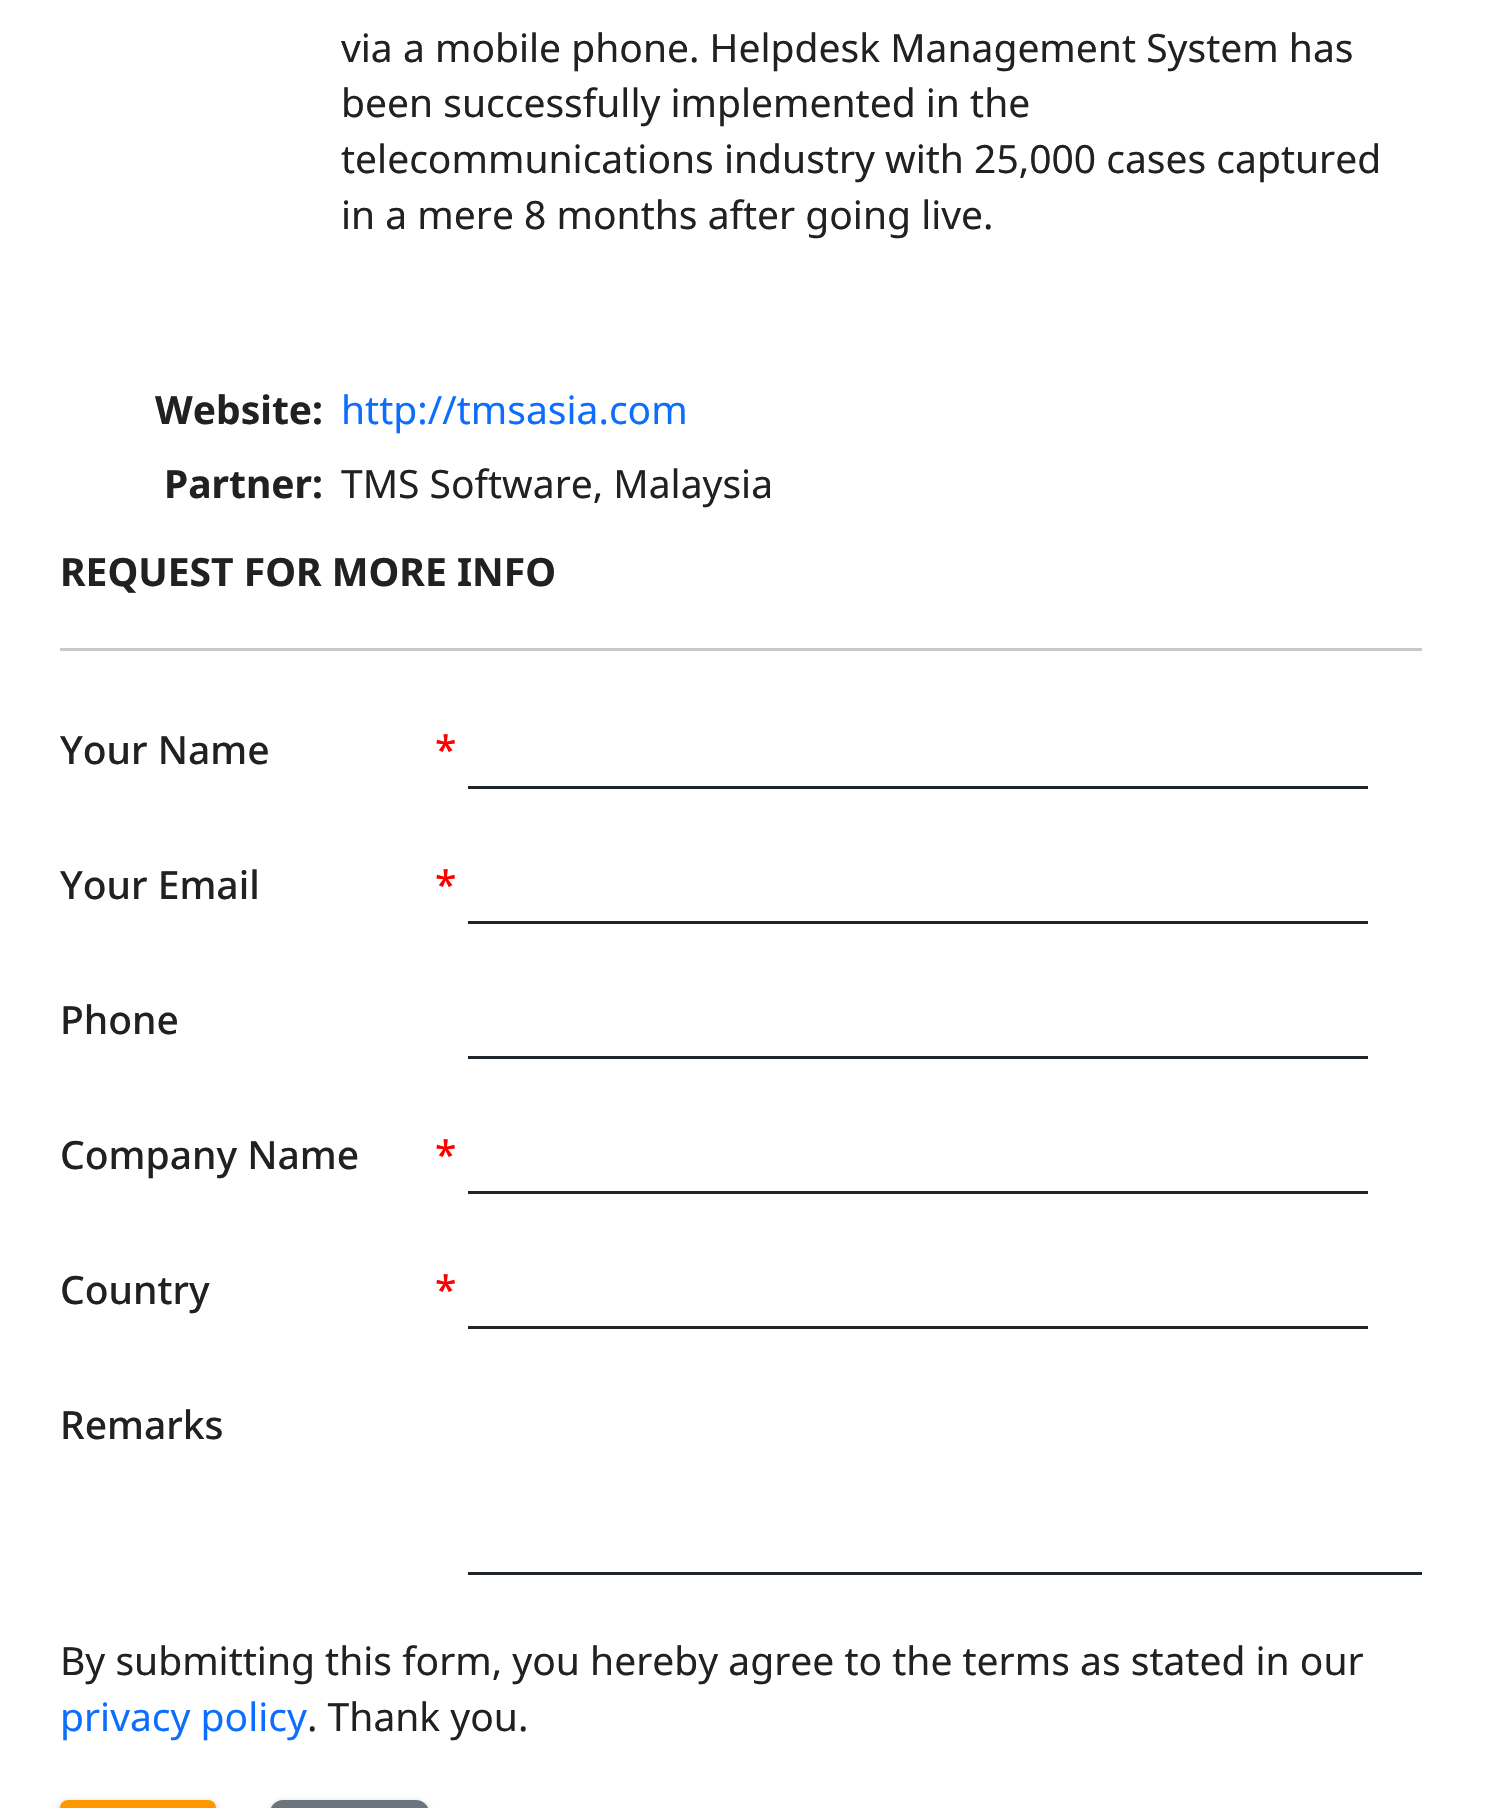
void draw(SkCanvas* c) {
SkPaint p;
p.setAntiAlias(true);
auto F=[&](const char* family, int weight, float size, bool italic = false){SkFontStyle style(weight, SkFontStyle::kNormal_Width,italic ? SkFontStyle::kItalic_Slant : SkFontStyle::kUpright_Slant);SkFont result(fontMgr->matchFamilyStyle(family, style), size);result.setSubpixel(true);return result;};
auto T=[&](const char* s, float x, float y, const SkFont& font){c->drawString(s, x, y, font, p);};
auto R=[&](float x, float y, float w, float h){c->drawRect(SkRect::MakeXYWH(x, y, w, h), p);};
auto Q=[&](float x, float y, float w, float h, float radius){c->drawRoundRect(SkRect::MakeXYWH(x, y, w, h), radius, radius, p);};
c->clear(0xffffffff);
auto f1 = F("Noto Sans",400,39);
p.setColor(0xff212121);
T("via a mobile phone. Helpdesk Management System has",341,62,f1);
T("been successfully implemented in the",341,117,f1);
T("telecommunications industry with 25,000 cases captured",341,173,f1);
T("in a mere 8 months after going live.",341,229,f1);
auto f2 = F("Noto Sans",700,39);
T("Website:",155,424,f2);
p.setColor(0xff0d6efd);
T("http://tmsasia.com",341,424,f1);
p.setColor(0xff212121);
T("Partner:",164,498,f2);
T("TMS Software, Malaysia",341,498,f1);
T("REQUEST FOR MORE INFO",60,586,f2);
p.setColor(0xffc8c8c8);
R(60,648,1362,3);
auto f3 = F("Noto Sans",500,39);
p.setColor(0xff212121);
T("Your Name",60,764,f3);
p.setColor(0xffff0000);
T("*",435,764,f3);
p.setColor(0xff1e262b);
R(468,786,900,3);
p.setColor(0xff212121);
T("Your Email",60,899,f3);
p.setColor(0xffff0000);
T("*",435,899,f3);
p.setColor(0xff1e262b);
R(468,921,900,3);
p.setColor(0xff212121);
T("Phone",60,1034,f3);
p.setColor(0xff1e262b);
R(468,1056,900,3);
p.setColor(0xff212121);
T("Company Name",60,1169,f3);
p.setColor(0xffff0000);
T("*",435,1169,f3);
p.setColor(0xff1e262b);
R(468,1191,900,3);
p.setColor(0xff212121);
T("Country",60,1304,f3);
p.setColor(0xffff0000);
T("*",435,1304,f3);
p.setColor(0xff1e262b);
R(468,1326,900,3);
p.setColor(0xff212121);
T("Remarks",60,1439,f3);
p.setColor(0xff1e262b);
R(468,1572,954,3);
p.setColor(0xff212121);
T("By submitting this form, you hereby agree to the terms as stated in our",60,1675,f1);
p.setColor(0xff0d6efd);
T("privacy policy",60,1731,f1);
p.setColor(0xff212121);
T(". Thank you.",307,1731,f1);
p.setColor(0x1f000000);
p.setMaskFilter(SkMaskFilter::MakeBlur(kNormal_SkBlurStyle, 2));
c->drawRoundRect(SkRect::MakeXYWH(57,1800,162,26),12,12,p);
p.setMaskFilter(nullptr);
p.setColor(0xffff9800);
Q(60,1800,156,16,8);
p.setColor(0x1f000000);
p.setMaskFilter(SkMaskFilter::MakeBlur(kNormal_SkBlurStyle, 2));
c->drawRoundRect(SkRect::MakeXYWH(267,1800,165,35),21,21,p);
p.setMaskFilter(nullptr);
p.setColor(0xff6c757d);
Q(270,1800,159,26,18);
}
